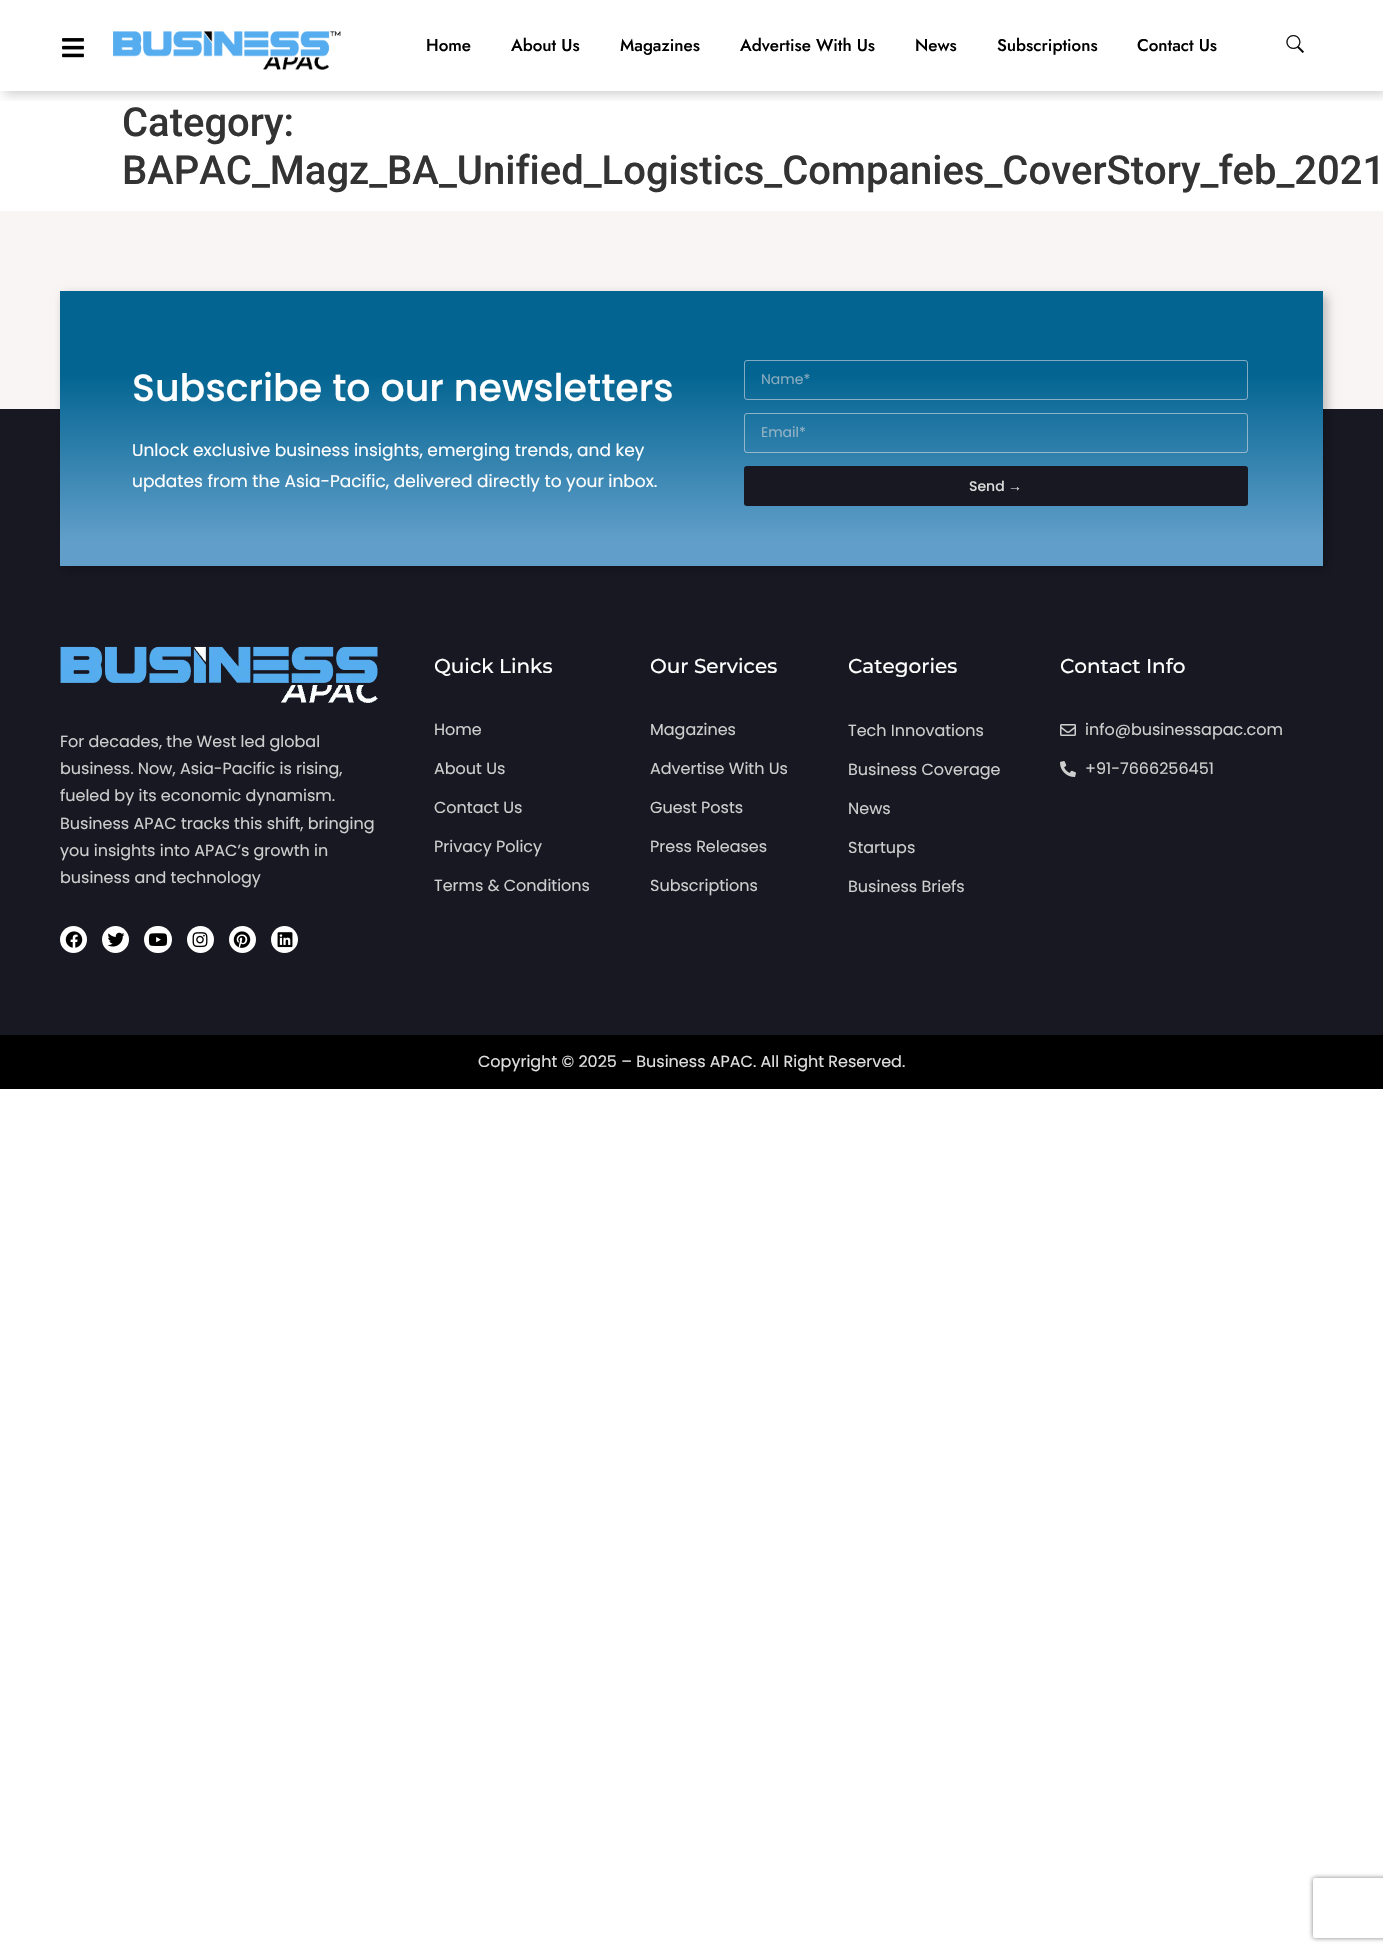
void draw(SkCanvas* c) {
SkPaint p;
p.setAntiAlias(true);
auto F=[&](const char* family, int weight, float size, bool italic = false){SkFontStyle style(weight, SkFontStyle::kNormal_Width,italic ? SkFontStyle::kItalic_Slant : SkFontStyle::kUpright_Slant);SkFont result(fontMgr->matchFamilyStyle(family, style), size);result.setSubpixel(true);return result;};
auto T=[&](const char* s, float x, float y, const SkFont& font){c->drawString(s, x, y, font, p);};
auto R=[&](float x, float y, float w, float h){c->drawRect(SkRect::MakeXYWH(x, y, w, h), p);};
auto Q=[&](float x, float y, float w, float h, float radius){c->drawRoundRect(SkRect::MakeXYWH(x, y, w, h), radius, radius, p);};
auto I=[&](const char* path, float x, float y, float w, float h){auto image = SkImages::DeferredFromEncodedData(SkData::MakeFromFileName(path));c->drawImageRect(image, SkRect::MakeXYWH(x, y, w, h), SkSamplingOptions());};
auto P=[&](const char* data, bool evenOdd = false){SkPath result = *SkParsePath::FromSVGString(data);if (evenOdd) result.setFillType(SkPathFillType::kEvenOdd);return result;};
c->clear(0xffffffff);
c->save();
c->clipRect(SkRect::MakeXYWH(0,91,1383,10));
p.setColor(0x2b000000);
p.setMaskFilter(SkMaskFilter::MakeBlur(kNormal_SkBlurStyle, 5));
c->drawRect(SkRect::MakeXYWH(4,4,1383,91),p);
p.setMaskFilter(nullptr);
c->restore();
I("1.png",62,38,22,20);
I("2.png",113,31,228,39);
auto f1 = F("Jost",500,17);
p.setColor(0xff000000);
T("Home",426,51,f1);
T("About Us",511,51,f1);
T("Magazines",620,51,f1);
T("Advertise With Us",740,51,f1);
T("News",915,51,f1);
T("Subscriptions",997,51,f1);
T("Contact Us",1137,51,f1);
I("3.png",1286,35,18,18);
auto f2 = F("Roboto",500,40);
p.setColor(0xff333333);
T("Category:",122,136,f2);
T("BAPAC_Magz_BA_Unified_Logistics_Companies_CoverStory_feb_2021",122,184,f2);
p.setColor(0xff181823);
R(0,409,1383,626);
p.setColor(0xfff9f5f5);
R(0,211,1383,198);
p.setColor(0x40000000);
p.setMaskFilter(SkMaskFilter::MakeBlur(kNormal_SkBlurStyle, 5));
c->drawRect(SkRect::MakeXYWH(64,295,1263,275),p);
p.setMaskFilter(nullptr);
{
const SkColor colors[] = {0xff036491,0xff619fca};
const float stops[] = {.3,.91};
const SkPoint ends[] = {{692,291}, {692,566}};
p.setShader(SkGradientShader::MakeLinear(ends, colors, stops, 2, SkTileMode::kClamp));
p.setAlpha(255);
}
R(60,291,1263,275);
auto f3 = F("Poppins",500,38);
p.setShader(nullptr);
p.setColor(0xffffffff);
T("Subscribe to our newsletters",132,401,f3);
auto f4 = F("Poppins",400,17);
T("Unlock exclusive business insights, emerging trends, and key",132,456,f4);
T("updates from the Asia-Pacific, delivered directly to your inbox.",132,487,f4);
p.setStroke(true);
p.setStrokeWidth(1);
p.setColor(0x85f5ecec);
c->drawRoundRect(SkRect::MakeXYWH(744.5,360.5,503,39),2.5,2.5,p);
auto f5 = F("Poppins",400,14);
p.setStroke(false);
p.setColor(0xff89acbe);
T("Name*",761,384,f5);
p.setStroke(true);
p.setColor(0x85f5ecec);
c->drawRoundRect(SkRect::MakeXYWH(744.5,413.5,503,39),2.5,2.5,p);
p.setStroke(false);
p.setColor(0xff95b3c5);
T("Email*",761,437,f5);
p.setColor(0xff181823);
Q(744,466,504,40,3);
auto f6 = F("Poppins",500,14);
p.setColor(0xffdadada);
T("Send",969,491,f6);
auto f7 = F("Liberation Sans",400,14);
T("→",1008,491,f7);
auto f8 = F("Montserrat",500,20);
p.setColor(0xffffffff);
T("Quick Links",434,673,f8);
auto f9 = F("Poppins",400,16);
p.setColor(0xffcecece);
T("Home",434,735,f9);
T("About Us",434,774,f9);
T("Contact Us",434,813,f9);
T("Privacy Policy",434,852,f9);
T("Terms & Conditions",434,891,f9);
p.setColor(0xffffffff);
T("Our Services",650,673,f8);
p.setColor(0xffcecece);
T("Magazines",650,735,f9);
T("Advertise With Us",650,774,f9);
T("Guest Posts",650,813,f9);
T("Press Releases",650,852,f9);
T("Subscriptions",650,891,f9);
p.setColor(0xffffffff);
T("Categories",848,673,f8);
p.setColor(0xffcecece);
T("Tech Innovations",848,736,f9);
T("Business Coverage",848,775,f9);
T("News",848,814,f9);
T("Startups",848,853,f9);
T("Business Briefs",848,892,f9);
p.setColor(0xffffffff);
T("Contact Info",1060,673,f8);
I("4.png",1060,724,16,12);
p.setColor(0xffcecece);
T("info@businessapac.com",1085,735,f9);
I("5.png",1060,761,16,16);
T("+91-7666256451",1085,774,f9);
I("6.png",60,646,318,57);
T("For decades, the West led global",60,747,f9);
T("business. Now, Asia-Pacific is rising,",60,774,f9);
T("fueled by its economic dynamism.",60,801,f9);
T("Business APAC tracks this shift, bringing",60,829,f9);
T("you insights into APAC’s growth in",60,856,f9);
T("business and technology",60,883,f9);
p.setColor(0xffffffff);
c->drawCircle(73.5,939.5,13.5,p);
I("7.png",65,931,18,17);
c->drawCircle(115.5,939.5,13.5,p);
I("8.png",107,932,18,15);
Q(144,926,28,27,13.5);
I("9.png",148,933,20,13);
c->drawCircle(200.5,939.5,13.5,p);
I("10.png",192,932,16,16);
c->drawCircle(242.5,939.5,13.5,p);
I("11.png",233,931,18,17);
c->drawCircle(284.5,939.5,13.5,p);
I("12.png",277,932,16,16);
p.setColor(0xff000000);
R(0,1035,1383,54);
p.setColor(0xffe0e0e0);
T("Copyright © 2025 – Business APAC. All Right Reserved.",478,1067,f9);
c->save();
c->clipPath(P("M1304 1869h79v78h-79zm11 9h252c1 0 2 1 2 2v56c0 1-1 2-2 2h-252c-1 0-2-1-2-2v-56c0-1 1-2 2-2z",true),true);
p.setColor(0xff808080);
p.setMaskFilter(SkMaskFilter::MakeBlur(kNormal_SkBlurStyle, 2.5));
c->drawRoundRect(SkRect::MakeXYWH(1313,1878,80,60),2,2,p);
p.setMaskFilter(nullptr);
c->restore();
}
